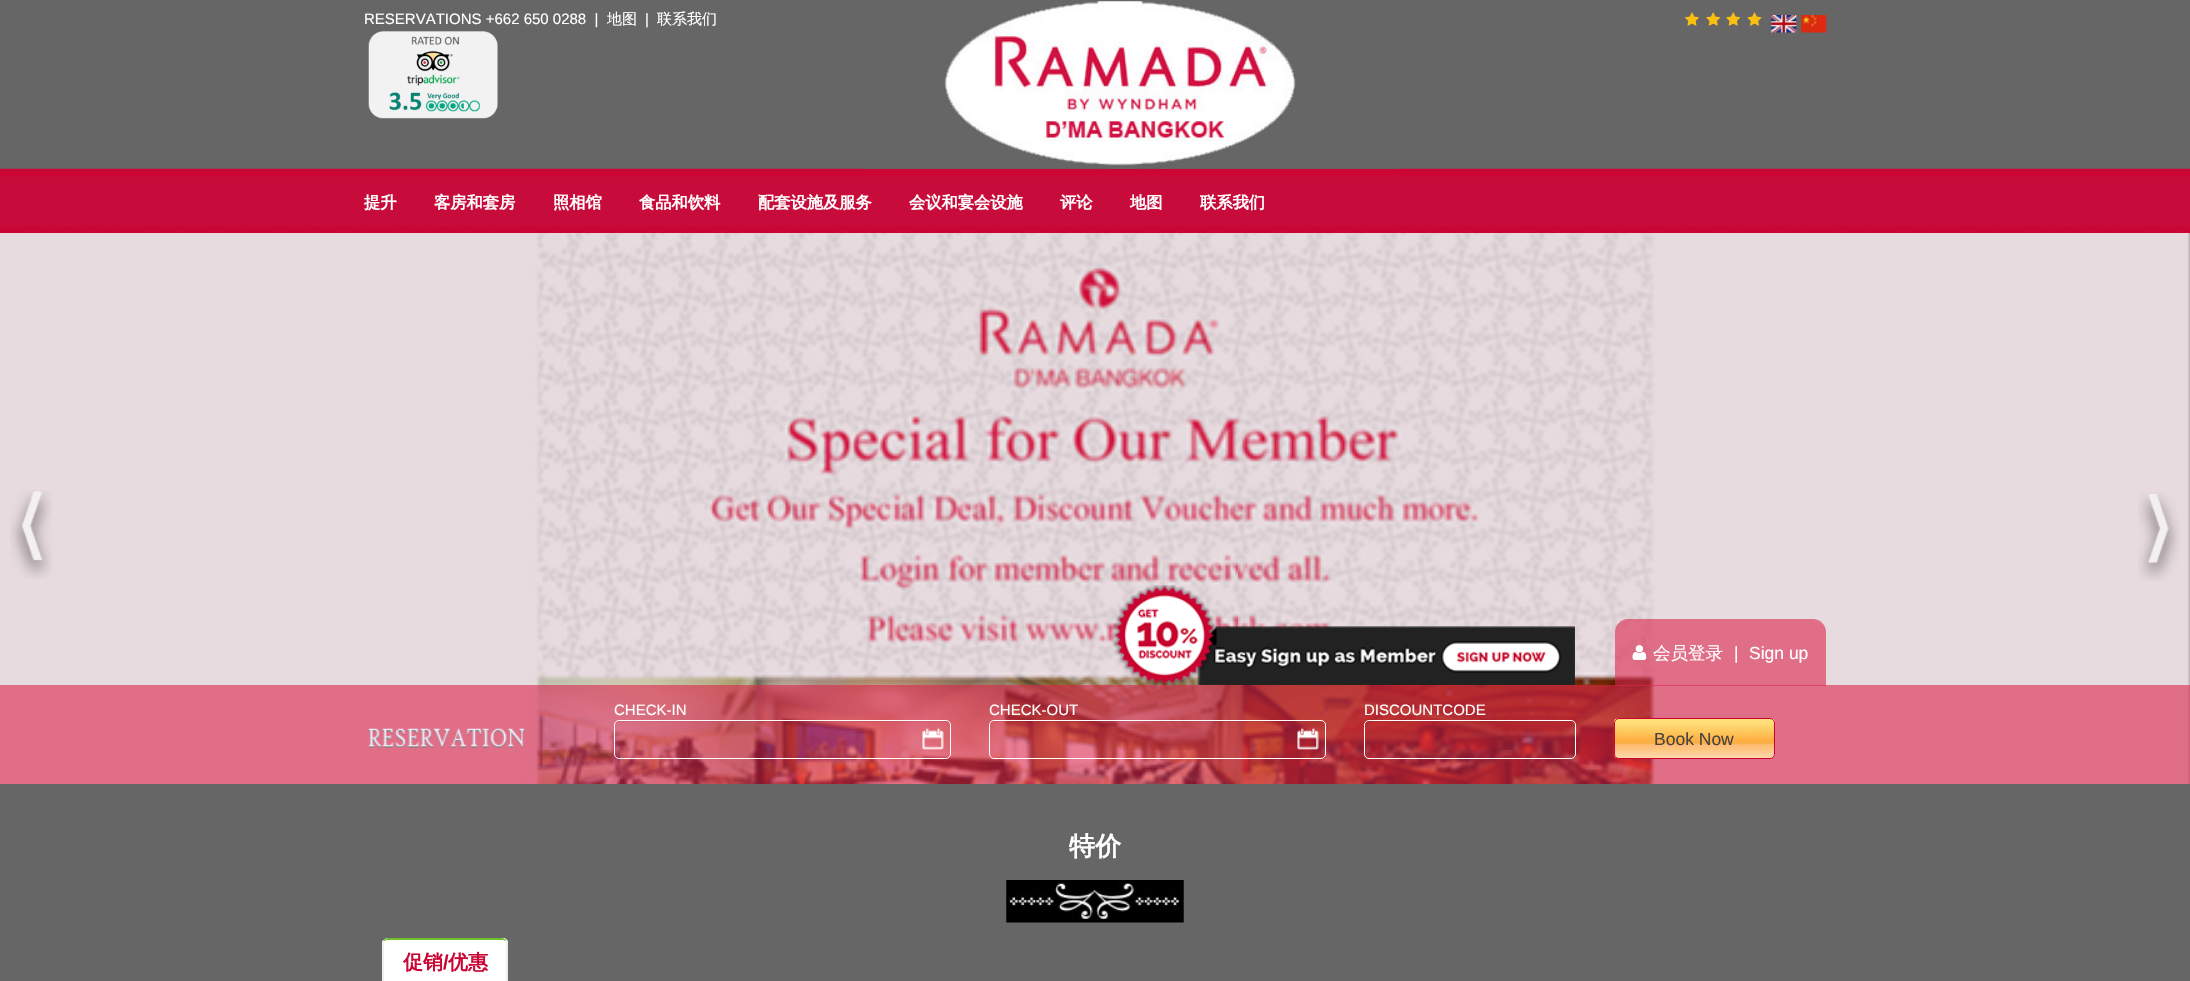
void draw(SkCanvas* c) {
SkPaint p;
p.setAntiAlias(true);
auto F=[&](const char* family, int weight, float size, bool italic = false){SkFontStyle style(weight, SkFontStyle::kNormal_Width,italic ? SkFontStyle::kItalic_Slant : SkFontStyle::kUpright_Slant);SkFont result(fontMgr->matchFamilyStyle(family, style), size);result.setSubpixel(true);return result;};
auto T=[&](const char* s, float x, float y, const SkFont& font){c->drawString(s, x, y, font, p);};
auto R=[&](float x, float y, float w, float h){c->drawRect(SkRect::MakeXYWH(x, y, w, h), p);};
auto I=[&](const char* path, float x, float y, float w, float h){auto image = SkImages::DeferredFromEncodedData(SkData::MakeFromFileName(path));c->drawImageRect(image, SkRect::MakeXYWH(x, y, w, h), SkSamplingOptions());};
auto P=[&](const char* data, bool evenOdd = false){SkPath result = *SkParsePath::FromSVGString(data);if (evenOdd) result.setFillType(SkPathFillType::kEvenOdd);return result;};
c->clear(0xff666666);
auto f1 = F("Liberation Sans",400,15);
p.setColor(0xffffffff);
T("RESERVATIONS +662 650 0288  |",364,24,f1);
auto f2 = F("WenQuanYi Zen Hei",500,15);
T("地图",607,24,f2);
T("|",645,24,f1);
T("联系我们",657,24,f2);
I("1.png",368,31,130,88);
I("8.png",0,168,2190,66);
I("2.png",863,1,536,168);
I("3.png",1685,12,14,14);
I("4.png",1706,12,15,14);
I("4.png",1726,12,15,14);
I("5.png",1747,12,15,14);
I("6.png",1771,15,26,18);
I("7.png",1801,15,26,18);
auto f3 = F("WenQuanYi Zen Hei",700,16.25);
T("提升",364,208,f3);
T("客房和套房",434,208,f3);
T("照相馆",553,208,f3);
T("食品和饮料",639,208,f3);
T("配套设施及服务",758,208,f3);
T("会议和宴会设施",909,208,f3);
T("评论",1060,208,f3);
T("地图",1130,208,f3);
T("联系我们",1200,208,f3);
I("9.png",0,233,2190,551);
I("10.png",10,490,42,89);
I("11.png",2138,492,42,89);
p.setColor(0x99db254b);
R(0,685,2190,99);
I("12.png",1112,585,463,100);
c->drawPath(P("M1628 619h185c7 0 13 6 13 13v54h-211v-54c0-7 6-13 13-13z"),p);
I("13.png",1632,645,15,15);
auto f4 = F("WenQuanYi Zen Hei",500,17.5);
p.setColor(0xffffffff);
T("会员登录",1653,659,f4);
auto f5 = F("Liberation Sans",400,17.5);
T("|",1734,659,f5);
T("Sign up",1749,659,f5);
T("CHECK-IN",614,715,f1);
I("14.png",922,727,22,23);
p.setColor(0x12000000);
c->drawPath(P("M619 722h327c2 0 4 2 4 4c0-3-1-5-4-5h-327c-3 0-4 2-4 5c0-2 2-4 4-4z"),p);
p.setStroke(true);
p.setStrokeWidth(1);
p.setColor(0xffffffff);
c->drawRoundRect(SkRect::MakeXYWH(614.5,720.5,336,38),4.5,4.5,p);
p.setStroke(false);
T("CHECK-OUT",989,715,f1);
I("15.png",1297,727,22,23);
p.setColor(0x12000000);
c->drawPath(P("M994 722h327c2 0 4 2 4 4c0-3-1-5-4-5h-327c-3 0-4 2-4 5c0-2 2-4 4-4z"),p);
p.setStroke(true);
p.setColor(0xffffffff);
c->drawRoundRect(SkRect::MakeXYWH(989.5,720.5,336,38),4.5,4.5,p);
p.setStroke(false);
T("DISCOUNTCODE",1364,715,f1);
p.setColor(0x12000000);
c->drawPath(P("M1369 722h202c2 0 4 2 4 4v-1c0-2-2-4-4-4h-202c-2 0-4 2-4 4v1c0-2 2-4 4-4z"),p);
p.setStroke(true);
p.setColor(0xffffffff);
c->drawRoundRect(SkRect::MakeXYWH(1364.5,720.5,211,38),4.5,4.5,p);
I("16.png",368,728,157,20);
I("17.png",1613,718,162,41);
p.setColor(0xffc90433);
c->drawRoundRect(SkRect::MakeXYWH(1614.5,718.5,160,40),4.5,4.5,p);
p.setStroke(false);
p.setColor(0xff444444);
T("Book Now",1654,745,f5);
auto f6 = F("WenQuanYi Zen Hei",700,26);
p.setColor(0xffffffff);
T("特价",1069,855,f6);
I("18.png",1006,880,178,43);
c->drawPath(P("M388 938h115c3 0 5 2 5 5v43h-125v-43c0-3 2-5 5-5z"),p);
p.setColor(0xff72c02c);
c->drawPath(P("M388 938h114c2 0 3 1 4 2v1c-1-1-3-1-4-1h-115l-3 1v-1c1-1 2-2 4-2z"),p);
p.setColor(0xffeeeeee);
c->drawPath(P("M508 941v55h-2v-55v-1z"),p);
c->drawPath(P("M384 940v1v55h-2v-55z"),p);
auto f7 = F("WenQuanYi Zen Hei",700,20);
p.setColor(0xffca0634);
T("促销",403,969,f7);
auto f8 = F("Liberation Sans",700,20);
T("/",443,969,f8);
T("优惠",448,969,f7);
}
